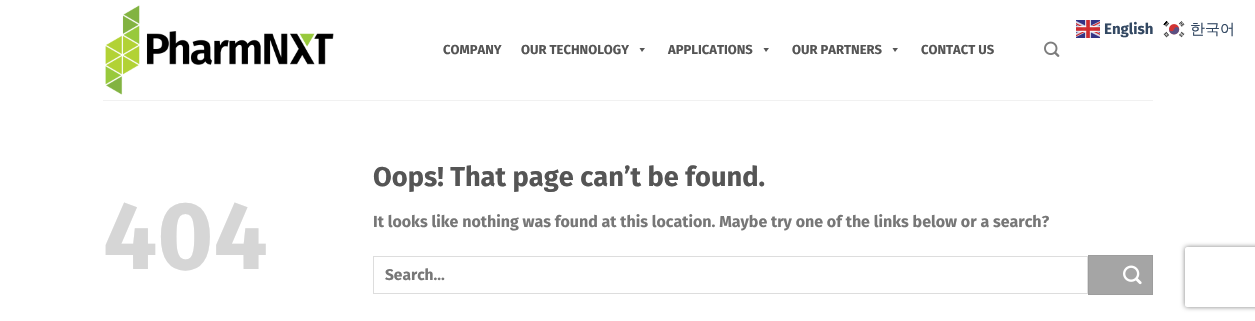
void draw(SkCanvas* c) {
SkPaint p;
p.setAntiAlias(true);
auto F=[&](const char* family, int weight, float size, bool italic = false){SkFontStyle style(weight, SkFontStyle::kNormal_Width,italic ? SkFontStyle::kItalic_Slant : SkFontStyle::kUpright_Slant);SkFont result(fontMgr->matchFamilyStyle(family, style), size);result.setSubpixel(true);return result;};
auto T=[&](const char* s, float x, float y, const SkFont& font){c->drawString(s, x, y, font, p);};
auto R=[&](float x, float y, float w, float h){c->drawRect(SkRect::MakeXYWH(x, y, w, h), p);};
auto I=[&](const char* path, float x, float y, float w, float h){auto image = SkImages::DeferredFromEncodedData(SkData::MakeFromFileName(path));c->drawImageRect(image, SkRect::MakeXYWH(x, y, w, h), SkSamplingOptions());};
auto P=[&](const char* data, bool evenOdd = false){SkPath result = *SkParsePath::FromSVGString(data);if (evenOdd) result.setFillType(SkPathFillType::kEvenOdd);return result;};
c->clear(0xffffffff);
I("1.png",1076,20,24,18);
auto f1 = F("Fira Sans",700,15);
p.setColor(0xff334862);
T("English",1104,34,f1);
I("2.png",1163,21,22,17);
auto f2 = F("WenQuanYi Zen Hei",500,15);
T("한국어",1190,34,f2);
I("3.png",105,5,229,90);
auto f3 = F("Fira Sans",700,13);
p.setColor(0xff555555);
T("COMPANY",443,54,f3);
T("OUR TECHNOLOGY",521,54,f3);
c->drawPath(P("M645 48l-3 4l-2.5-4z"),p);
T("APPLICATIONS",668,54,f3);
c->drawPath(P("M769 48l-3 4l-2.5-4z"),p);
T("OUR PARTNERS",792,54,f3);
c->drawPath(P("M898 48l-3 4l-2.5-4z"),p);
T("CONTACT US",921,54,f3);
I("4.png",1044,41,16,16);
p.setColor(0xfff1f1f1);
R(103,100,1050,1);
auto f4 = F("Fira Sans",700,96);
p.setColor(0xffd6d6d6);
T("404",103,269,f4);
auto f5 = F("Fira Sans",700,27.25);
p.setColor(0xff555555);
T("Oops! That page can’t be found.",373,186,f5);
auto f6 = F("Fira Sans",700,16);
p.setColor(0xff777777);
T("It looks like nothing was found at this location. Maybe try one of the links below or a search?",373,227,f6);
p.setStroke(true);
p.setStrokeWidth(1);
p.setColor(0xffdddddd);
c->drawRect(SkRect::MakeXYWH(373.5,256.5,714,37),p);
auto f7 = F("Fira Sans",700,15.5);
p.setStroke(false);
p.setColor(0xff777777);
T("Search…",385,280,f7);
p.setColor(0xffa5a5a5);
c->drawRect(SkRect::MakeXYWH(1088.5,255.5,64,39),p);
p.setStroke(true);
p.setColor(0xff9d9d9d);
c->drawRect(SkRect::MakeXYWH(1088.5,255.5,64,39),p);
I("5.png",1123,265,19,20);
c->save();
c->clipPath(P("M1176 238h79v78h-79zm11 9h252c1 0 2 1 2 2v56c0 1-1 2-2 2h-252c-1 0-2-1-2-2v-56c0-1 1-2 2-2z",true),true);
p.setStroke(false);
p.setColor(0xff808080);
p.setMaskFilter(SkMaskFilter::MakeBlur(kNormal_SkBlurStyle, 2.5));
c->drawRoundRect(SkRect::MakeXYWH(1185,247,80,60),2,2,p);
p.setMaskFilter(nullptr);
c->restore();
}
